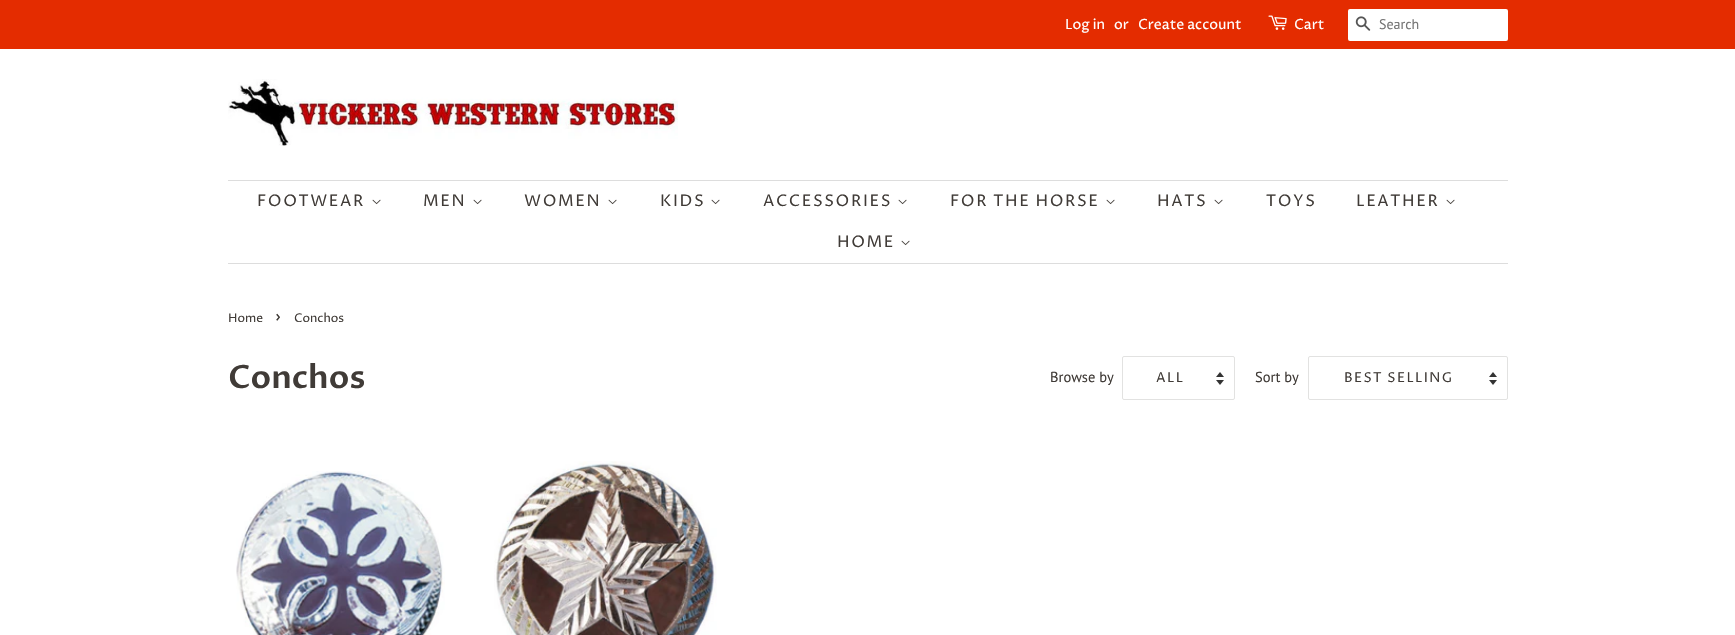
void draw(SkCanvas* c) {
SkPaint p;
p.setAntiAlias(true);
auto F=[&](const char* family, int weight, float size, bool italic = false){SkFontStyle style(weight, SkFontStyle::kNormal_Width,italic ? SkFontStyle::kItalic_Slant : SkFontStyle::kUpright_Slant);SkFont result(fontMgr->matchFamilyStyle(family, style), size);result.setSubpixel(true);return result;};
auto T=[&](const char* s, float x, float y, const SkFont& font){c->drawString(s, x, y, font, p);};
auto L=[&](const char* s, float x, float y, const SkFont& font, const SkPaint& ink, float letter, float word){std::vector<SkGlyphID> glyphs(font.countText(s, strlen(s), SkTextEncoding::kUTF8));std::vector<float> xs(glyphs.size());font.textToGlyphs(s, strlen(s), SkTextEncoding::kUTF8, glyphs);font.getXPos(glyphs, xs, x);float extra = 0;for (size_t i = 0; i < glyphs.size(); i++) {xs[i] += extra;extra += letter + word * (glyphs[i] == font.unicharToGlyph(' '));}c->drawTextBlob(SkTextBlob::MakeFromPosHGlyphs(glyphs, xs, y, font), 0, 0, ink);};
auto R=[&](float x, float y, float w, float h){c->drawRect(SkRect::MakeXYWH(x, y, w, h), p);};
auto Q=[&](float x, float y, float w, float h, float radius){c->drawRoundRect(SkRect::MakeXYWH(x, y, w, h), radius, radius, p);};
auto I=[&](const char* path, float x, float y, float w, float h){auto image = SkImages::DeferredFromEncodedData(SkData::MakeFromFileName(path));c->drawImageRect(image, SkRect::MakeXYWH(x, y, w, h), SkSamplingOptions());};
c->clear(0xffffffff);
p.setColor(0xffe42c00);
R(0,0,1735,49);
auto f1 = F("Proza Libre",400,14);
p.setColor(0xffffffff);
T("Log in",1065,29,f1);
T("or",1114,29,f1);
T("Create account",1138,29,f1);
I("1.png",1268,15,19,15);
T("Cart",1294,29,f1);
Q(1348,9,160,32,2);
I("2.png",1355,16,16,15);
auto f2 = F("PT Sans",400,14);
p.setColor(0xff757575);
T("Search",1379,29,f2);
I("3.png",228,79,450,67);
p.setColor(0xffdddddd);
R(228,180,1280,1);
R(228,263,1280,1);
auto f3 = F("Proza Libre",400,16);
p.setColor(0xff403b37);
L("FOOTWEAR",257,206,f3,p,1.6,0);
I("4.png",372,199,9,6);
L("MEN",423,206,f3,p,1.6,0);
I("4.png",473,199,9,6);
L("WOMEN",524,206,f3,p,1.6,0);
I("4.png",608,199,9,6);
L("KIDS",660,206,f3,p,1.6,0);
I("4.png",711,199,9,6);
L("ACCESSORIES",763,206,f3,p,1.6,0);
I("4.png",898,199,9,6);
L("FOR THE HORSE",950,206,f3,p,1.6,0);
I("4.png",1106,199,9,6);
L("HATS",1157,206,f3,p,1.6,0);
I("4.png",1214,199,9,6);
L("TOYS",1266,206,f3,p,1.6,0);
L("LEATHER",1356,206,f3,p,1.6,0);
I("4.png",1446,199,9,6);
L("HOME",837,247,f3,p,1.6,0);
I("4.png",901,240,9,6);
auto f4 = F("Proza Libre",400,12);
T("Home",228,322,f4);
auto f5 = F("Proza Libre",400,17);
T("›",275,322,f5);
T("Conchos",294,322,f4);
auto f6 = F("Proza Libre",600,32);
T("Conchos",228,388,f6);
auto f7 = F("PT Sans",400,14.5);
T("Browse by",1050,382,f7);
I("5.png",1216,372,8,13);
p.setStroke(true);
p.setStrokeWidth(1);
p.setColor(0xffe2e2e1);
c->drawRoundRect(SkRect::MakeXYWH(1122.5,356.5,112,43),1.5,1.5,p);
auto f8 = F("Proza Libre",400,13.5);
p.setStroke(false);
p.setColor(0xff403b37);
L("ALL",1156,382,f8,p,1.4,0);
T("Sort by",1255,382,f7);
I("5.png",1489,372,8,13);
p.setStroke(true);
p.setColor(0xffe2e2e1);
c->drawRoundRect(SkRect::MakeXYWH(1308.5,356.5,199,43),1.5,1.5,p);
p.setStroke(false);
p.setColor(0xff403b37);
L("BEST SELLING",1344,382,f8,p,1.4,0);
I("6.png",236,471,209,164);
I("7.png",494,461,223,174);
}
